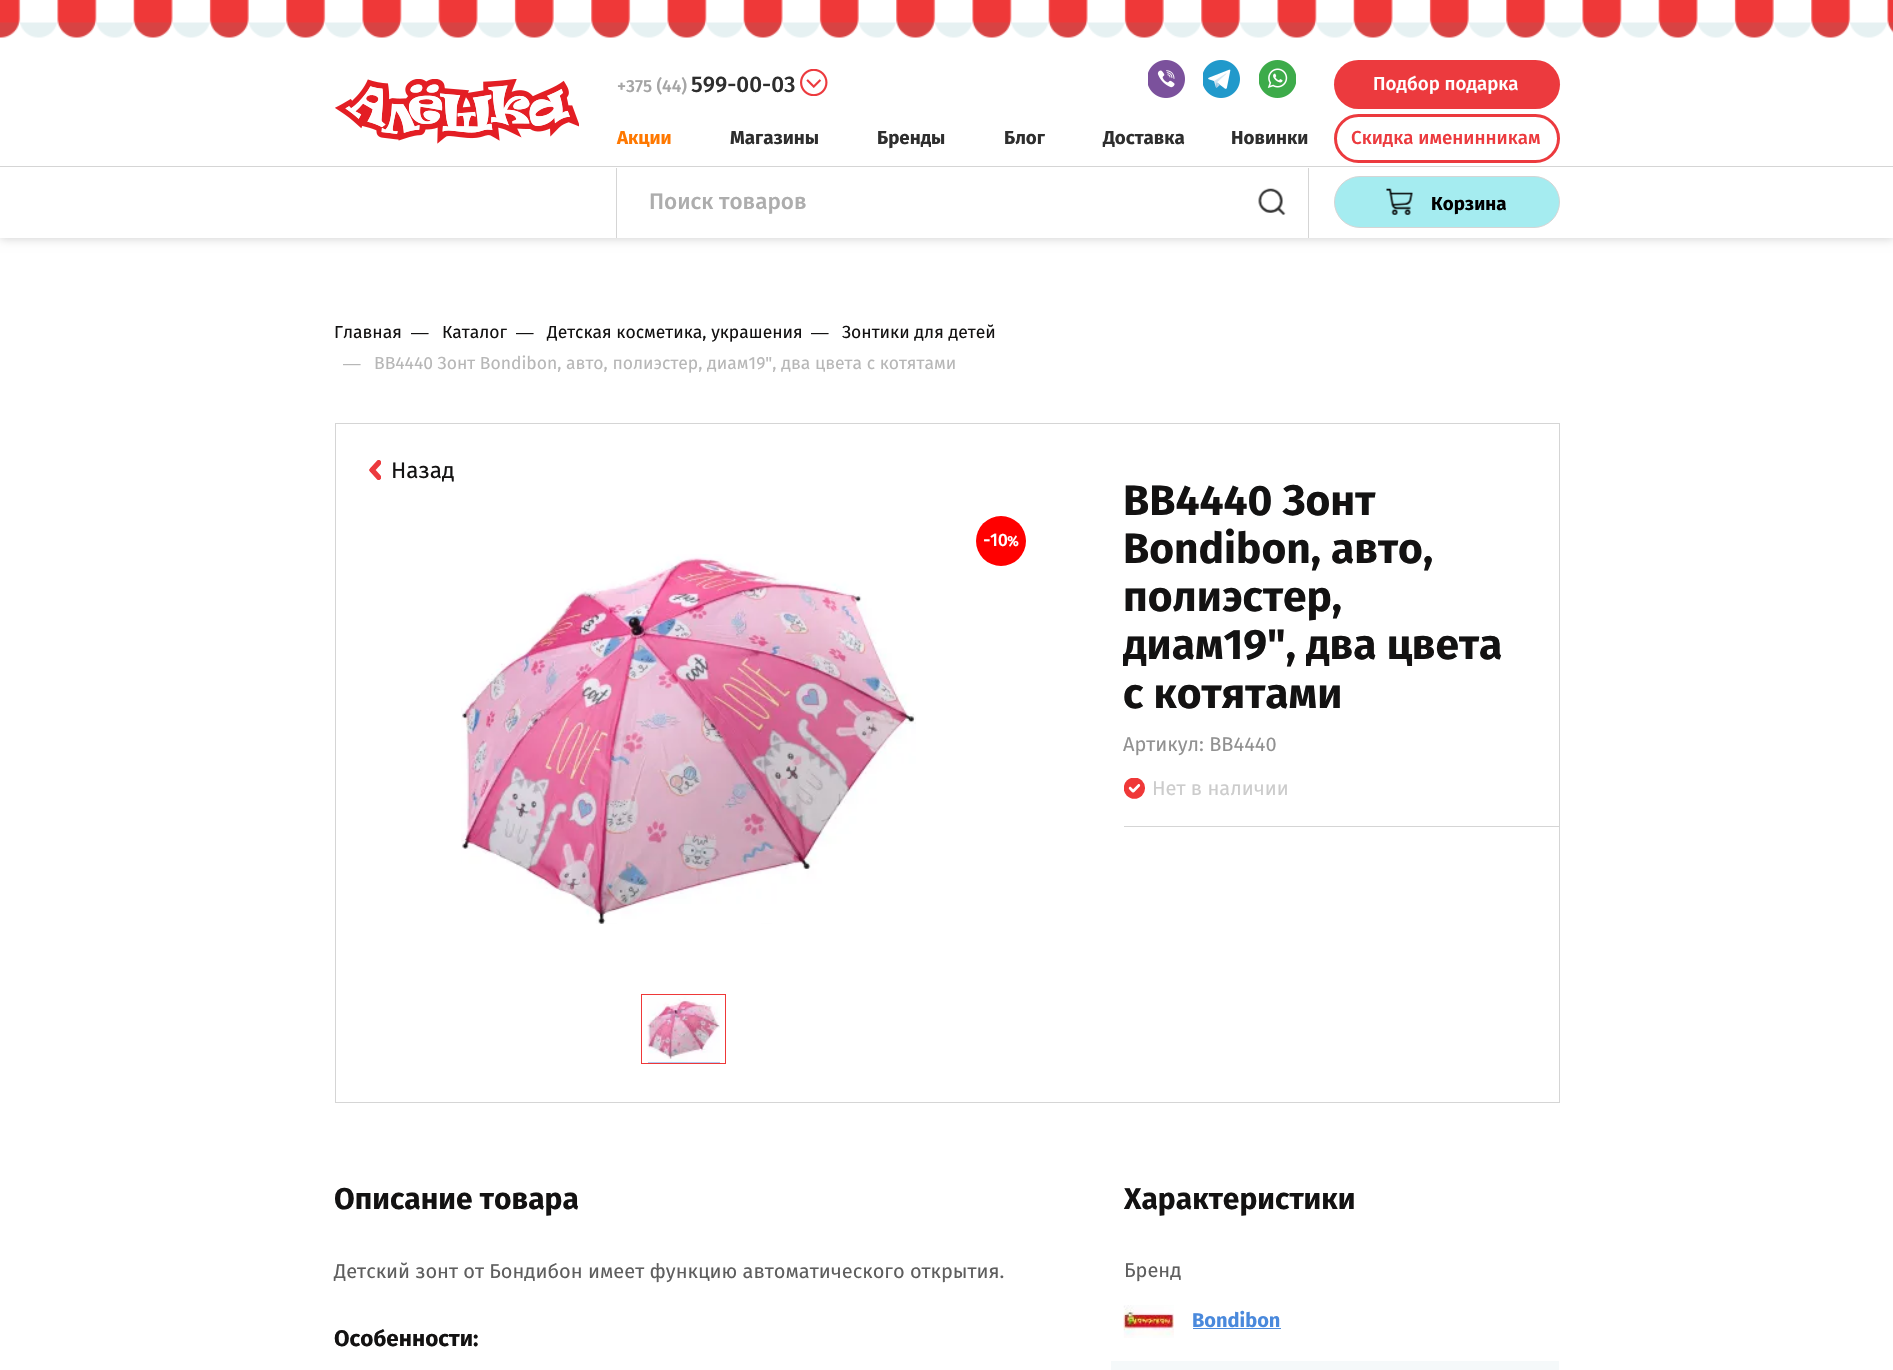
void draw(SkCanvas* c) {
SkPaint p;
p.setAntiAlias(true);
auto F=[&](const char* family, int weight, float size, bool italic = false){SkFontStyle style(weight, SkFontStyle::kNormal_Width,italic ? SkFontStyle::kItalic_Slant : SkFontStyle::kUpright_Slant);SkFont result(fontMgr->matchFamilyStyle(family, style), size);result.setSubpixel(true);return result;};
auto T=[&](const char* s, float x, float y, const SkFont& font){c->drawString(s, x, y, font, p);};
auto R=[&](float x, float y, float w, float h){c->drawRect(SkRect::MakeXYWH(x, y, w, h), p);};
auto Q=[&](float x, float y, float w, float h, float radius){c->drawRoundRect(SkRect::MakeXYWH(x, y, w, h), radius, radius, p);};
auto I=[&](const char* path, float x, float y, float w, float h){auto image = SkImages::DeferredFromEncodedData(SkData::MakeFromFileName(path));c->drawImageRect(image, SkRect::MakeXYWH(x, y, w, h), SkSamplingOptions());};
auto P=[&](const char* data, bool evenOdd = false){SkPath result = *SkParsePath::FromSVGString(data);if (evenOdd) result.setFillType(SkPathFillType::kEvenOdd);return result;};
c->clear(0xffffffff);
c->save();
c->clipPath(P("M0 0h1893v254h-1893zm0 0h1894v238h-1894z",true),true);
p.setColor(0x33000000);
p.setMaskFilter(SkMaskFilter::MakeBlur(kNormal_SkBlurStyle, 5));
c->drawRect(SkRect::MakeXYWH(0,0,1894,238),p);
p.setMaskFilter(nullptr);
c->restore();
I("1.png",0,0,1893,38);
I("2.png",335,79,244,65);
auto f1 = F("Fira Sans",500,17.5);
p.setColor(0xffa5a5a5);
T("+375 (44)",617,92,f1);
auto f2 = F("Fira Sans",500,22.5);
p.setColor(0xff2e2e2e);
T("599-00-03",691,92,f2);
I("3.png",800,69,28,27);
I("4.png",1148,60,37,38);
I("5.png",1203,60,37,38);
I("6.png",1259,60,37,38);
auto f3 = F("Fira Sans",700,18.75);
p.setColor(0xffff7800);
T("Акции",617,144,f3);
p.setColor(0xff2e2e2e);
T("Магазины",730,144,f3);
T("Бренды",877,144,f3);
T("Блог",1004,144,f3);
T("Доставка",1103,144,f3);
T("Новинки",1231,144,f3);
p.setColor(0xffec3a3e);
Q(1334,60,226,49,24.5);
auto f4 = F("Fira Sans",500,18.75);
p.setColor(0xffffffff);
T("Подбор подарка",1373,90,f4);
p.setStroke(true);
p.setStrokeWidth(3);
p.setColor(0xffec3a3e);
c->drawRoundRect(SkRect::MakeXYWH(1335.5,115.5,223,46),23,23,p);
p.setStroke(false);
T("Скидка именинникам",1351,144,f4);
p.setColor(0xffd5d5d5);
R(0,166,1893,1);
R(1308,168,1,70);
R(616,168,1,70);
p.setColor(0xffffffff);
R(618,237,690,1);
p.setColor(0xffadadad);
T("Поиск товаров",649,209,f2);
I("7.png",1258,188,28,27);
p.setColor(0xffa5ecf0);
c->drawRoundRect(SkRect::MakeXYWH(1334.5,176.5,225,51),25.5,25.5,p);
p.setStroke(true);
p.setStrokeWidth(1);
p.setColor(0xffd5d5d5);
c->drawRoundRect(SkRect::MakeXYWH(1334.5,176.5,225,51),25.5,25.5,p);
I("8.png",1386,188,27,27);
p.setStroke(false);
p.setColor(0xff000000);
T("Корзина",1431,210,f3);
auto f5 = F("Fira Sans",400,17.5);
p.setColor(0xff131212);
T("Главная",334,338,f5);
auto f6 = F("Liberation Sans",400,17.5);
T("—",411,338,f6);
T("Каталог",442,338,f5);
T("—",516,338,f6);
T("Детская косметика, украшения",547,338,f5);
T("—",811,338,f6);
T("Зонтики для детей",842,338,f5);
p.setColor(0xffb7b7b7);
T("—",343,369,f6);
T("ВВ4440 Зонт Bondibon, авто, полиэстер, диам19\", два цвета с котятами",374,369,f5);
p.setStroke(true);
p.setColor(0xffd5d5d5);
c->drawRect(SkRect::MakeXYWH(335.5,423.5,1224,679),p);
I("9.png",369,460,12,20);
auto f7 = F("Fira Sans",400,22.5);
p.setStroke(false);
p.setColor(0xff131212);
T("Назад",391,478,f7);
p.setColor(0xffff0000);
c->drawCircle(1001,541,25,p);
auto f8 = F("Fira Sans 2",700,17.5);
p.setColor(0xffffffff);
T("-10",983,546,f8);
auto f9 = F("Fira Sans 2",700,14);
T("%",1007,546,f9);
I("10.png",461,554,455,370);
p.setStroke(true);
p.setColor(0xffef3838);
c->drawRect(SkRect::MakeXYWH(641.5,994.5,84,69),p);
p.setStroke(false);
p.setColor(0xff689aea);
R(648,1062,72,1);
I("11.png",647,995,73,68);
auto f10 = F("Fira Sans",700,42.5);
p.setColor(0xff131212);
T("ВВ4440 Зонт",1123,515,f10);
T("Bondibon, авто,",1123,563,f10);
T("полиэстер,",1123,611,f10);
T("диам19\", два цвета",1123,659,f10);
T("с котятами",1123,708,f10);
p.setColor(0xffd5d5d5);
R(1124,826,435,1);
auto f11 = F("Fira Sans",400,20);
p.setColor(0xff919191);
T("Артикул: ВВ4440",1123,751,f11);
I("12.png",1124,778,21,21);
p.setColor(0xffcccccc);
T("Нет в наличии",1152,795,f11);
auto f12 = F("Fira Sans",700,30);
p.setColor(0xff131212);
T("Описание товара",334,1209,f12);
p.setColor(0xff5e5e5e);
T("Детский зонт от Бондибон имеет функцию автоматического открытия.",334,1278,f11);
auto f13 = F("Fira Sans",700,22.5);
p.setColor(0xff131212);
T("Особенности:",334,1346,f13);
T("Характеристики",1124,1209,f12);
p.setColor(0xff5e5e5e);
T("Бренд",1124,1277,f11);
I("13.png",1123,1305,51,33);
auto f14 = F("Fira Sans",700,20);
p.setColor(0xff4a89dc);
T("Bondibon",1192,1327,f14);
R(1193,1328,88,1);
p.setColor(0xfff5f9fa);
R(1111,1361,448,9);
}
